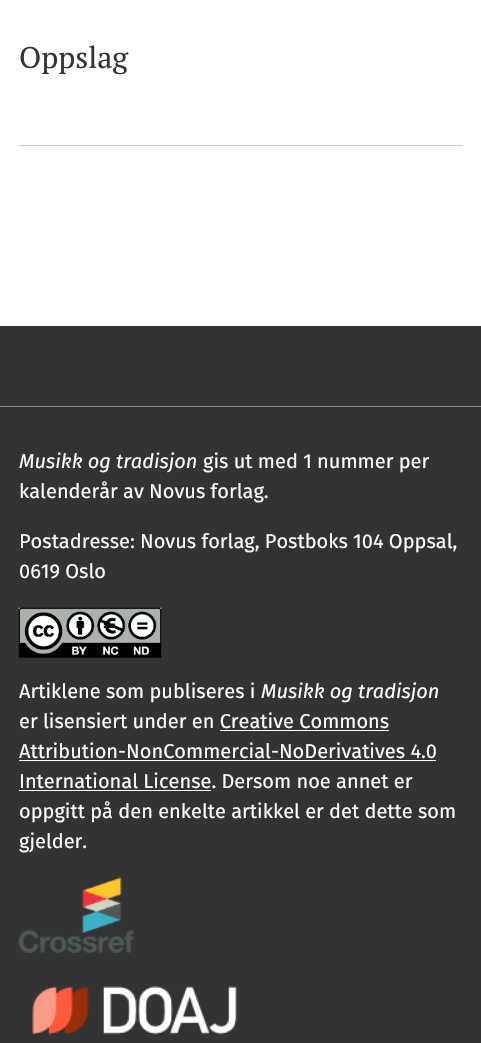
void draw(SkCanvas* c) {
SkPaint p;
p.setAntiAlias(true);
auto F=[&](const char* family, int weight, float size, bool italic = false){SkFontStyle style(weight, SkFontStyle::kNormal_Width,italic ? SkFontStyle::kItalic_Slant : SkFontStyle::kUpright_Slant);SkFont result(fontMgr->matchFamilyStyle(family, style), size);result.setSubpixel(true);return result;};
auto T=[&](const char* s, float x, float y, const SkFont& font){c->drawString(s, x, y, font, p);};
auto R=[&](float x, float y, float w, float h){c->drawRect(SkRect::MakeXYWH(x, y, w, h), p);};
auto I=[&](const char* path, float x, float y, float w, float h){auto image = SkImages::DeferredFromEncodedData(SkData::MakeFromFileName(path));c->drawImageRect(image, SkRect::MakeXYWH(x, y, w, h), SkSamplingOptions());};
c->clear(0xffffffff);
auto f1 = F("PT Serif",400,30);
p.setColor(0xff333333);
T("Oppslag",19,68,f1);
p.setColor(0xffcccccc);
R(19,145,444,1);
p.setColor(0xff333333);
R(0,326,481,717);
p.setColor(0xff858585);
R(0,406,481,1);
auto f2 = F("Fira Sans",400,20,true);
p.setColor(0xffffffff);
T("Musikk og tradisjon",19,468,f2);
auto f3 = F("Fira Sans",400,20);
T("gis ut med 1 nummer per",203,468,f3);
T("kalenderår av Novus forlag.",19,498,f3);
T("Postadresse: Novus forlag, Postboks 104 Oppsal,",19,548,f3);
T("0619 Oslo",19,578,f3);
I("1.png",18,607,144,51);
T("Artiklene som publiseres i",19,698,f3);
T("Musikk og tradisjon",261,698,f2);
T("er lisensiert under en Creative Commons",19,728,f3);
T("Attribution-NonCommercial-NoDerivatives 4.0",19,758,f3);
R(220,730,169,1);
R(19,760,417,1);
T("International License. Dersom noe annet er",19,788,f3);
R(19,790,192,1);
T("oppgitt på den enkelte artikkel er det dette som",19,818,f3);
T("gjelder.",19,848,f3);
I("2.png",18,877,116,76);
I("3.png",32,986,205,49);
}
